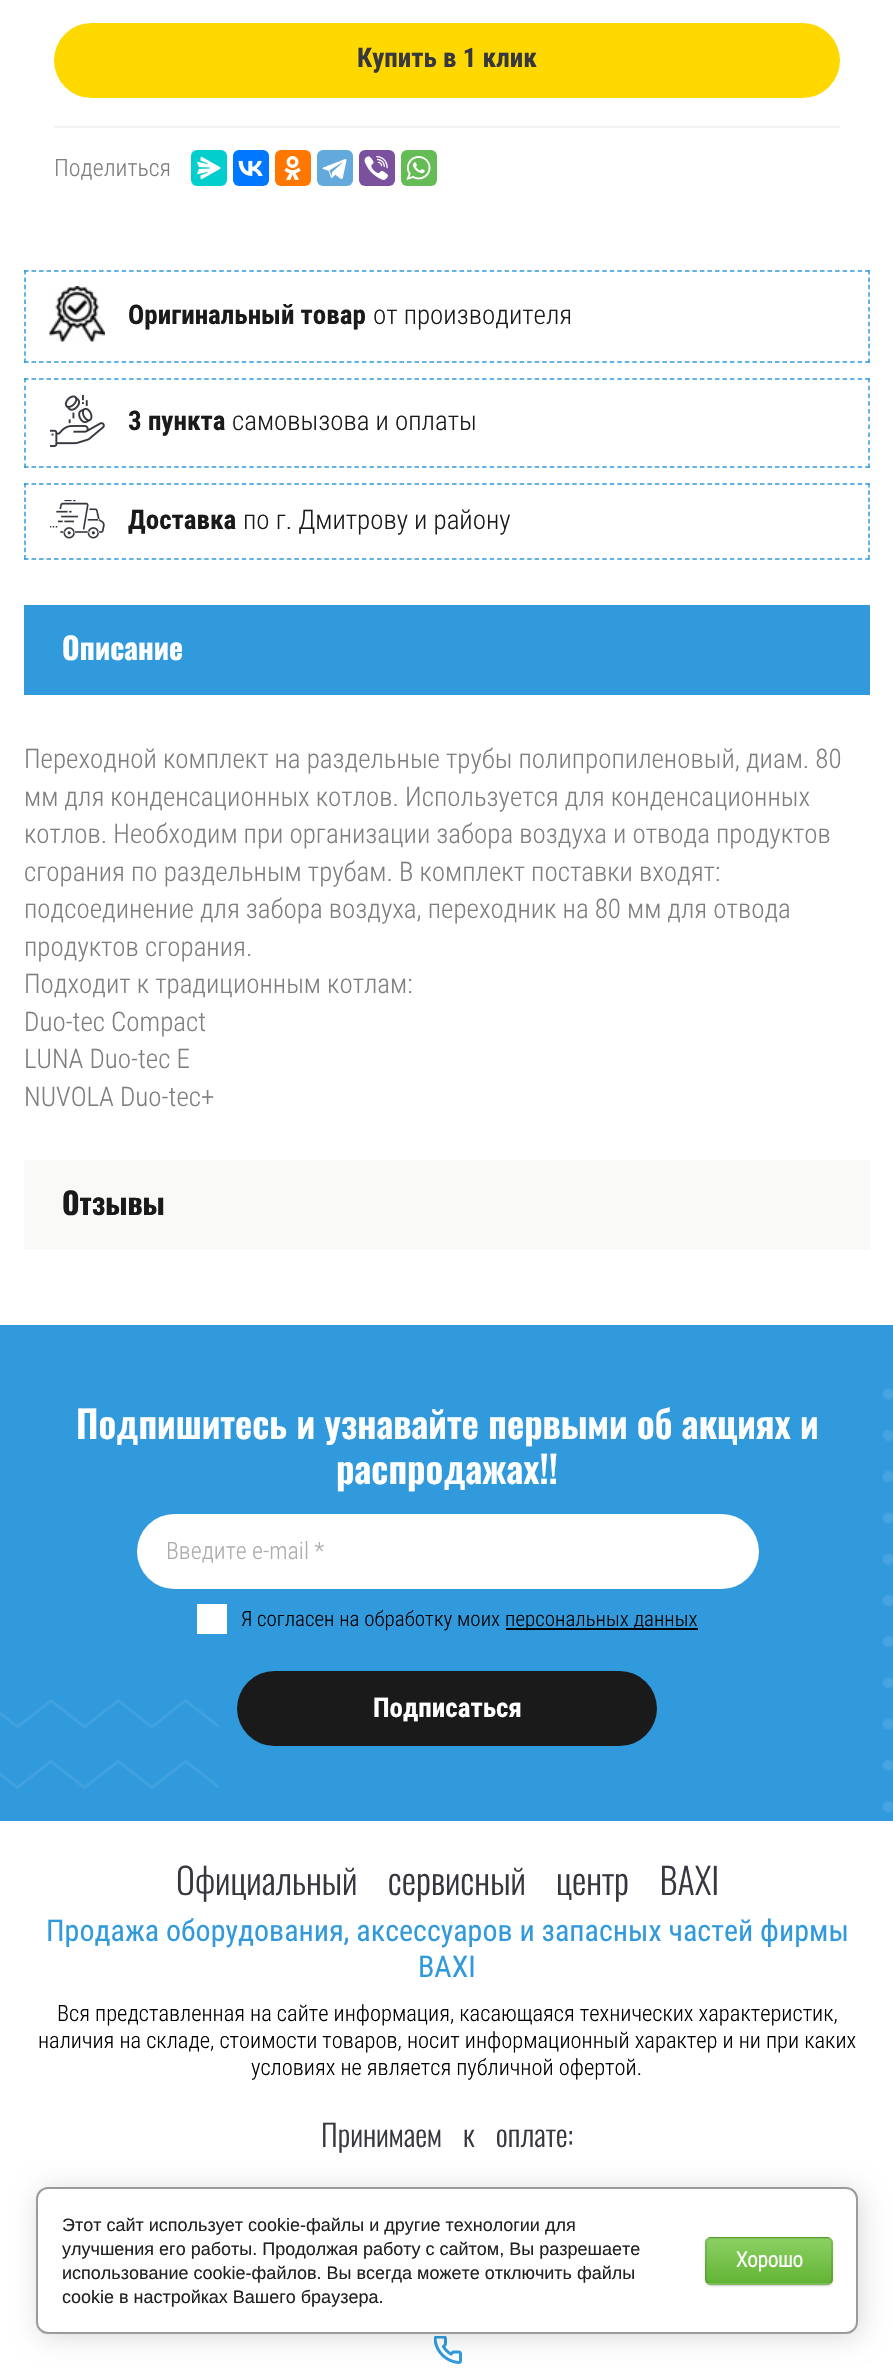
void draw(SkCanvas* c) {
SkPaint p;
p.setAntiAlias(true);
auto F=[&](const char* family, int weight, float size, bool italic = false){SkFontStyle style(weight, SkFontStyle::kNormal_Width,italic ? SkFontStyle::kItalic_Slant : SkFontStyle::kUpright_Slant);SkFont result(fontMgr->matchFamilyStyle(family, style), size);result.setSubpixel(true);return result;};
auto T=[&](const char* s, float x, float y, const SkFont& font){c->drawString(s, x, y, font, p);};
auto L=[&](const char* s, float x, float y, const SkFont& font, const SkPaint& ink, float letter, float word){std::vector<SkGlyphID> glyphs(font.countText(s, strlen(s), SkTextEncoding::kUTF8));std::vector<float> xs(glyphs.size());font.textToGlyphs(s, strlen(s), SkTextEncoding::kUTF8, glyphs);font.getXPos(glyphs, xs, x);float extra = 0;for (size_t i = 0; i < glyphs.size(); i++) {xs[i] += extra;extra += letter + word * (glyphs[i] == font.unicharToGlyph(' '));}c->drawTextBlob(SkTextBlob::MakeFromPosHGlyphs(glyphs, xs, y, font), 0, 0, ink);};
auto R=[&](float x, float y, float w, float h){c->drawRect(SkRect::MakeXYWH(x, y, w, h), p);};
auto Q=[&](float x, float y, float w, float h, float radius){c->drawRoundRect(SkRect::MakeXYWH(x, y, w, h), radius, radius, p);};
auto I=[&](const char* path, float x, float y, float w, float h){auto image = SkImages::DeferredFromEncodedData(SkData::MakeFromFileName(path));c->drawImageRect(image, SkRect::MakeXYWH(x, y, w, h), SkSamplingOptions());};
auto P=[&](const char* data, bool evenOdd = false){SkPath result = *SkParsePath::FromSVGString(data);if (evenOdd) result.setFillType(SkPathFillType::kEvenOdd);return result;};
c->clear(0xffffffff);
p.setColor(0xfff2f2f2);
R(54,126,786,2);
p.setColor(0xffffd800);
Q(54,23,786,75,37.5);
auto f1 = F("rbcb",700,27);
p.setColor(0xff373740);
T("Купить в 1 клик",357,67,f1);
auto f2 = F("Roboto Condensed",300,24);
p.setColor(0xff7e7e7e);
T("Поделиться",54,176,f2);
p.setColor(0xff03cece);
Q(191,150,36,36,6);
I("1.png",197,156,24,24);
p.setColor(0xff0077ff);
Q(233,150,36,36,6);
I("2.png",238,160,25,16);
p.setColor(0xffff7700);
Q(275,150,36,36,6);
I("3.png",284,156,17,24);
p.setColor(0xff64a9dc);
Q(317,150,36,36,6);
I("4.png",322,159,25,21);
p.setColor(0xff7b519d);
Q(359,150,36,36,6);
I("5.png",364,156,24,24);
p.setColor(0xff65bc54);
Q(401,150,36,36,6);
I("6.png",406,156,25,24);
p.setStroke(true);
p.setStrokeWidth(1.5);
p.setColor(0xff319add);
p.setPathEffect(SkDashPathEffect::Make({{4.5f,3.01f}}, 0));
c->drawPath(P("M24 271h846"),p);
p.setPathEffect(nullptr);
p.setPathEffect(SkDashPathEffect::Make({{4.5f,2.88f}}, 0));
c->drawPath(P("M869 270v93"),p);
p.setPathEffect(nullptr);
p.setPathEffect(SkDashPathEffect::Make({{4.5f,3.01f}}, 0));
c->drawPath(P("M24 362h846"),p);
p.setPathEffect(nullptr);
p.setPathEffect(SkDashPathEffect::Make({{4.5f,2.88f}}, 0));
c->drawPath(P("M25 270v93"),p);
p.setPathEffect(nullptr);
I("7.png",49,286,56,56);
p.setStroke(false);
p.setColor(0xff1a1a1a);
T("Оригинальный товар",128,324,f1);
auto f3 = F("Roboto Condensed",300,27);
T("от производителя",373,324,f3);
p.setStroke(true);
p.setColor(0xff319add);
p.setPathEffect(SkDashPathEffect::Make({{4.5f,3.01f}}, 0));
c->drawPath(P("M24 379h846"),p);
p.setPathEffect(nullptr);
p.setPathEffect(SkDashPathEffect::Make({{4.5f,3.27f}}, 0));
c->drawPath(P("M869 378v90"),p);
p.setPathEffect(nullptr);
p.setPathEffect(SkDashPathEffect::Make({{4.5f,3.01f}}, 0));
c->drawPath(P("M24 467h846"),p);
p.setPathEffect(nullptr);
p.setPathEffect(SkDashPathEffect::Make({{4.5f,3.27f}}, 0));
c->drawPath(P("M25 378v90"),p);
p.setPathEffect(nullptr);
I("8.png",50,395,55,52);
p.setStroke(false);
p.setColor(0xff1a1a1a);
T("3 пункта",128,430,f1);
T("самовызова и оплаты",232,430,f3);
p.setStroke(true);
p.setColor(0xff319add);
p.setPathEffect(SkDashPathEffect::Make({{4.5f,3.01f}}, 0));
c->drawPath(P("M24 484h846"),p);
p.setPathEffect(nullptr);
p.setPathEffect(SkDashPathEffect::Make({{4.5f,2.7f}}, 0));
c->drawPath(P("M869 483v76.5"),p);
p.setPathEffect(nullptr);
p.setPathEffect(SkDashPathEffect::Make({{4.5f,3.01f}}, 0));
c->drawPath(P("M24 559h846"),p);
p.setPathEffect(nullptr);
p.setPathEffect(SkDashPathEffect::Make({{4.5f,2.7f}}, 0));
c->drawPath(P("M25 483v76.5"),p);
p.setPathEffect(nullptr);
I("9.png",50,500,55,39);
p.setStroke(false);
p.setColor(0xff1a1a1a);
T("Доставка",128,529,f1);
T("по г. Дмитрову и району",243,529,f3);
p.setColor(0xff319add);
R(24,605,846,90);
auto f4 = F("Oswald",700,30);
p.setColor(0xffffffff);
T("Описание",62,660,f4);
p.setColor(0xff7e7e7e);
T("Переходной комплект на раздельные трубы полипропиленовый, диам. 80",24,768,f3);
T("мм для конденсационных котлов. Используется для конденсационных",24,806,f3);
T("котлов. Необходим при организации забора воздуха и отвода продуктов",24,843,f3);
T("сгорания по раздельным трубам. В комплект поставки входят:",24,881,f3);
T("подсоединение для забора воздуха, переходник на 80 мм для отвода",24,918,f3);
T("продуктов сгорания.",24,956,f3);
T("Подходит к традиционным котлам:",24,993,f3);
T("Duo-tec Compact",24,1031,f3);
T("LUNA Duo-tec E",24,1068,f3);
T("NUVOLA Duo-tec+",24,1106,f3);
p.setColor(0xfff9faf8);
R(24,1160,846,90);
p.setColor(0xff1a1a1a);
T("Отзывы",62,1215,f4);
p.setColor(0xff319add);
R(0,1325,893,496);
I("10.png",0,1388,893,425);
auto f5 = F("Oswald",600,37.5);
p.setColor(0xffffffff);
T("Подпишитесь и узнавайте первыми об акциях и",76,1439,f5);
T("распродажах!!",336,1484,f5);
Q(137,1514,622,75,37.5);
p.setColor(0xffacacac);
T("Введите e-mail *",166,1559,f2);
p.setColor(0xffffffff);
R(197,1604,30,30);
auto f6 = F("Roboto Condensed",300,21);
p.setColor(0xff000000);
T("Я согласен на обработку моих",241,1626,f6);
R(506,1628,192,2);
T("персональных данных",505,1626,f6);
p.setColor(0xff1a1a1a);
Q(237,1671,420,75,37.5);
p.setColor(0xffffffff);
T("Подписаться",373,1717,f1);
auto f7 = F("Oswald",300,36);
p.setColor(0xff373740);
L("Официальный сервисный центр BAXI",176,1895,f7,p,0,23);
auto f8 = F("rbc",400,30);
p.setColor(0xff319add);
T("Продажа оборудования, аксессуаров и запасных частей фирмы",46,1941,f8);
T("BAXI",418,1977,f8);
auto f9 = F("Roboto Condensed",300,22.5);
p.setColor(0xff000000);
T("Вся представленная на сайте информация, касающаяся технических характеристик,",57,2021,f9);
T("наличия на складе, стоимости товаров, носит информационный характер и ни при каких",38,2048,f9);
T("условиях не является публичной офертой.",251,2075,f9);
auto f10 = F("Oswald",300,30);
p.setColor(0xff373740);
L("Принимаем к оплате:",321,2147,f10,p,0,15);
I("11.png",434,2336,28,28);
p.setColor(0x24000000);
p.setMaskFilter(SkMaskFilter::MakeBlur(kNormal_SkBlurStyle, 13.5));
c->drawRoundRect(SkRect::MakeXYWH(39,2190,822,147),12,12,p);
p.setMaskFilter(nullptr);
p.setColor(0xffffffff);
c->drawRoundRect(SkRect::MakeXYWH(37,2188,820,145),11,11,p);
p.setStroke(true);
p.setStrokeWidth(2);
p.setColor(0xff9b9b9b);
c->drawRoundRect(SkRect::MakeXYWH(37,2188,820,145),11,11,p);
auto f11 = F("Liberation Sans",400,18);
p.setStroke(false);
p.setColor(0xff212121);
T("Этот сайт использует cookie-файлы и другие технологии для",62,2231,f11);
T("улучшения его работы. Продолжая работу с сайтом, Вы разрешаете",62,2255,f11);
T("использование cookie-файлов. Вы всегда можете отключить файлы",62,2279,f11);
T("cookie в настройках Вашего браузера.",62,2303,f11);
p.setColor(0x33000000);
p.setMaskFilter(SkMaskFilter::MakeBlur(kNormal_SkBlurStyle, 1));
c->drawRoundRect(SkRect::MakeXYWH(705,2238,128,48),6,6,p);
p.setMaskFilter(nullptr);
c->save();
c->clipPath(P("M711 2237h116c3.5 0 6 2.5 6 6v36c0 3.5-2.5 6-6 6h-116c-3.5 0-6-2.5-6-6v-36c0-3.5 2.5-6 6-6z"),true);
{
const SkColor colors[] = {0xff8cd164,0xff63b435};
const float stops[] = {0,1};
const SkPoint ends[] = {{769,2193}, {769,2238}};
p.setShader(SkGradientShader::MakeLinear(ends, colors, stops, 2, SkTileMode::kClamp));
p.setAlpha(255);
}
R(705,2237,128,1);
{
const SkColor colors[] = {0xff8cd164,0xff63b435};
const float stops[] = {0,1};
const SkPoint ends[] = {{769,2238}, {769,2283}};
p.setShader(SkGradientShader::MakeLinear(ends, colors, stops, 2, SkTileMode::kClamp));
p.setAlpha(255);
}
R(705,2238,128,45);
{
const SkColor colors[] = {0xff8cd164,0xff63b435};
const float stops[] = {0,1};
const SkPoint ends[] = {{769,2283}, {769,2328}};
p.setShader(SkGradientShader::MakeLinear(ends, colors, stops, 2, SkTileMode::kClamp));
p.setAlpha(255);
}
R(705,2283,128,2);
c->restore();
p.setStroke(true);
p.setShader(nullptr);
p.setColor(0x1a000000);
c->drawRoundRect(SkRect::MakeXYWH(706,2238,126,46),5,5,p);
auto f12 = F("Roboto Condensed",700,21);
p.setStroke(false);
p.setColor(0xffffffff);
T("Хорошо",736,2267,f12);
}
